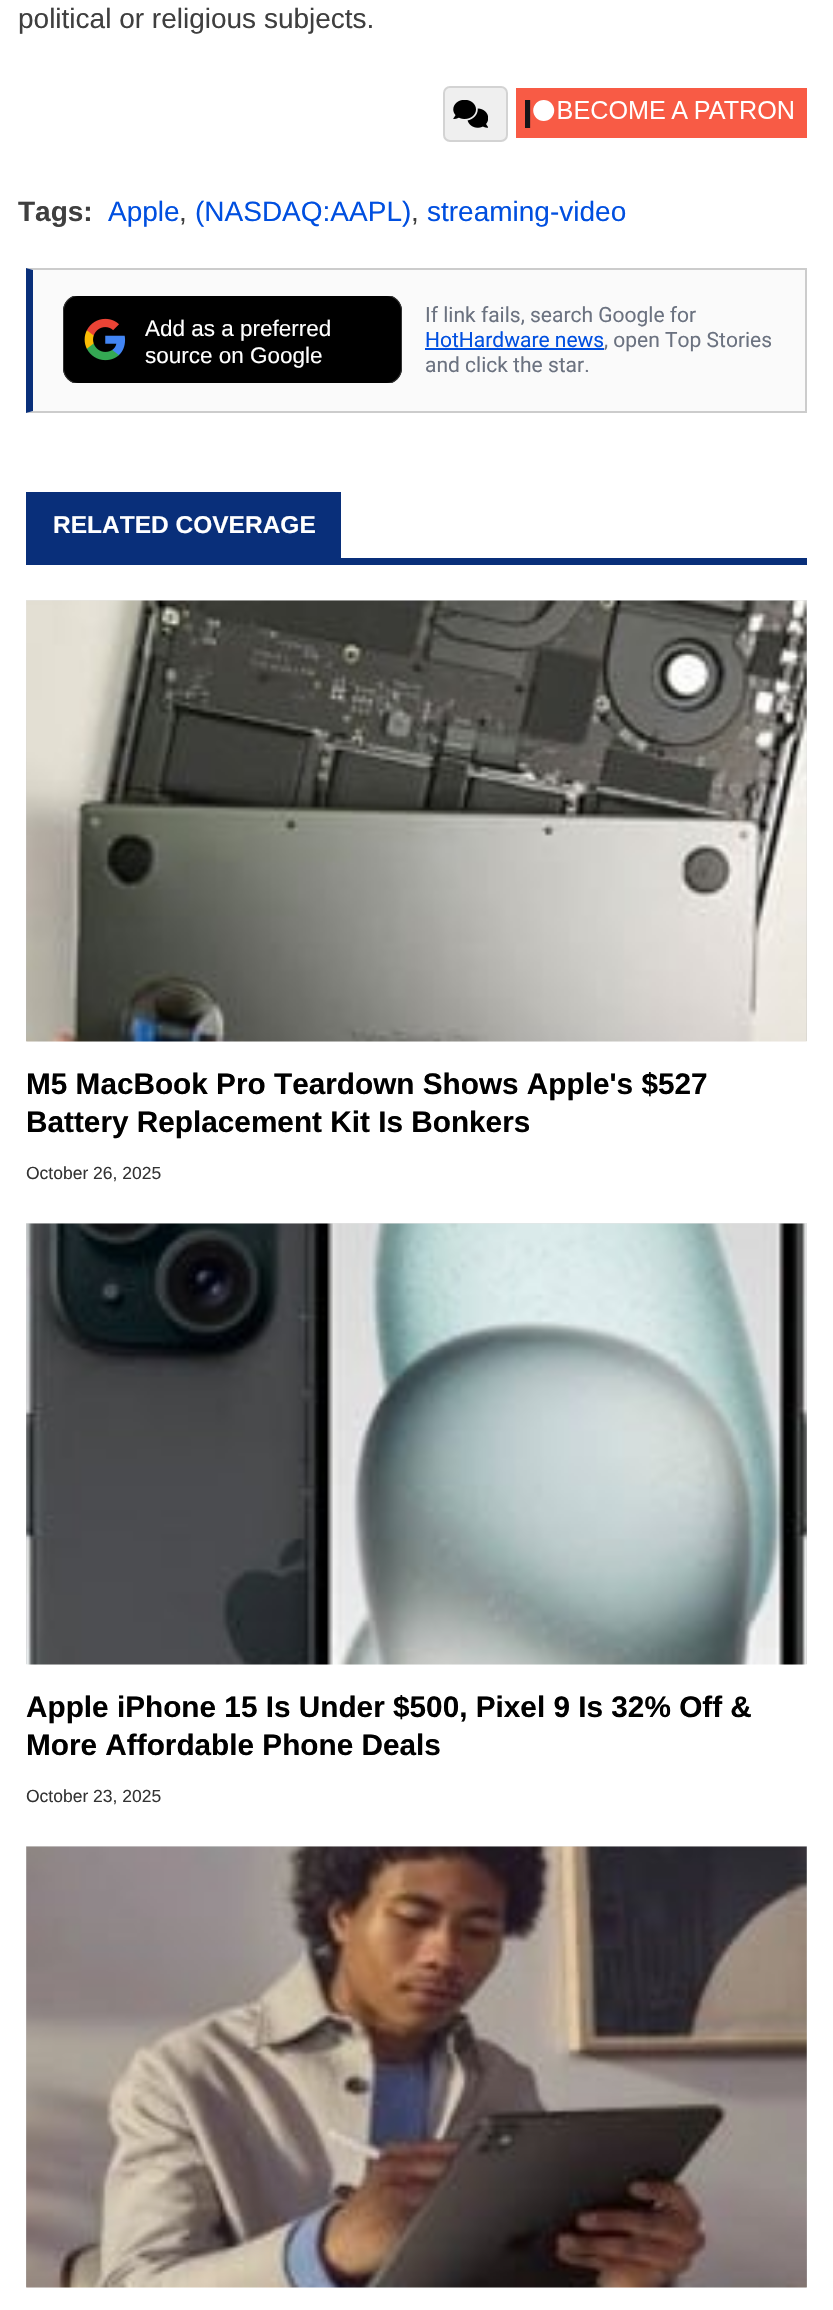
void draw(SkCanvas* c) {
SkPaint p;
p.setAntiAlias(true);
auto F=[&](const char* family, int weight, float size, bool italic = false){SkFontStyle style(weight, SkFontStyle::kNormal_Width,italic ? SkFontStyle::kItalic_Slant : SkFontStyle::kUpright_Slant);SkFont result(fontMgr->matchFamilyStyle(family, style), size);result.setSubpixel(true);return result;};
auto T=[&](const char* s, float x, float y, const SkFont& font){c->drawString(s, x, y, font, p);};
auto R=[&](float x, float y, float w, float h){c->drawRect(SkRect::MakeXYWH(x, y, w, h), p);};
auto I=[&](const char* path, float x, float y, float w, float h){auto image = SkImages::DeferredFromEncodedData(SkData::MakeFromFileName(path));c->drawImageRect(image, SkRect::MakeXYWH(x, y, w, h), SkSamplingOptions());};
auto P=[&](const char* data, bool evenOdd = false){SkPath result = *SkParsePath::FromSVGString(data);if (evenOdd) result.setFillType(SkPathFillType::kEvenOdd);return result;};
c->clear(0xffffffff);
auto f1 = F("Liberation Sans",400,28);
p.setColor(0xff3f3f3f);
T("political or religious subjects.",18,28,f1);
p.setColor(0xffefefef);
c->drawRoundRect(SkRect::MakeXYWH(444,87,63,54),6,6,p);
p.setStroke(true);
p.setStrokeWidth(2);
p.setColor(0xffd3d3d3);
c->drawRoundRect(SkRect::MakeXYWH(444,87,63,54),6,6,p);
I("1.png",453,100,35,28);
p.setStroke(false);
p.setColor(0xfff85b45);
R(516,88,291,50);
I("2.png",525,100,268,28);
auto f2 = F("Liberation Sans",700,28);
p.setColor(0xff3f3f3f);
T("Tags:",18,221,f2);
p.setColor(0xff004fe0);
T("Apple",108,221,f1);
p.setColor(0xff3f3f3f);
T(",",179,221,f1);
p.setColor(0xff004fe0);
T("(NASDAQ:AAPL)",195,221,f1);
p.setColor(0xff3f3f3f);
T(",",411,221,f1);
p.setColor(0xff004fe0);
T("streaming-video",427,221,f1);
p.setColor(0xfffafafa);
R(33,270,772,141);
p.setColor(0xffcccccc);
c->drawPath(P("M26 268h781l-2 2h-772z"),p);
R(805,268,2,145);
c->drawPath(P("M807 413h-781l7-2h772z"),p);
p.setColor(0xff092f7a);
c->drawPath(P("M26 413v-145l7 2v141z"),p);
I("3.png",63,296,339,87);
auto f3 = F("Liberation Sans",400,22.5);
p.setColor(0xffffffff);
T("Add as a preferred",145,336,f3);
T("source on Google",145,363,f3);
auto f4 = F("Roboto",400,21);
p.setColor(0xff6b7280);
T("If link fails, search Google for",425,322,f4);
p.setColor(0xff004fe0);
T("HotHardware news",425,347,f4);
R(425,348,179,2);
p.setColor(0xff6b7280);
T(", open Top Stories",604,347,f4);
T("and click the star.",425,372,f4);
p.setColor(0xff092f7a);
R(26,558,781,7);
R(26,492,315,66);
auto f5 = F("Liberation Sans",700,24.5);
p.setColor(0xffffffff);
T("RELATED COVERAGE",53,533,f5);
{
const SkColor colors[] = {0xffe6e6e6,0xffb3b3b3};
const float stops[] = {0,1};
const SkPoint ends[] = {{416,600}, {417,1041}};
p.setShader(SkGradientShader::MakeLinear(ends, colors, stops, 2, SkTileMode::kClamp));
p.setAlpha(255);
}
R(26,600,781,441);
I("4.png",26,600,781,442);
auto f6 = F("Liberation Sans",700,29.75);
p.setShader(nullptr);
p.setColor(0xff000000);
T("M5 MacBook Pro Teardown Shows Apple's $527",26,1094,f6);
T("Battery Replacement Kit Is Bonkers",26,1132,f6);
auto f7 = F("Liberation Sans",400,17.5);
p.setColor(0xff333333);
T("October 26, 2025",26,1179,f7);
{
const SkColor colors[] = {0xffe6e6e6,0xffb3b3b3};
const float stops[] = {0,1};
const SkPoint ends[] = {{416,1223}, {417,1664}};
p.setShader(SkGradientShader::MakeLinear(ends, colors, stops, 2, SkTileMode::kClamp));
p.setAlpha(255);
}
R(26,1223,781,441);
I("5.png",26,1223,781,442);
p.setShader(nullptr);
p.setColor(0xff000000);
T("Apple iPhone 15 Is Under $500, Pixel 9 Is 32% Off &",26,1717,f6);
T("More Affordable Phone Deals",26,1755,f6);
p.setColor(0xff333333);
T("October 23, 2025",26,1802,f7);
{
const SkColor colors[] = {0xffe6e6e6,0xffb3b3b3};
const float stops[] = {0,1};
const SkPoint ends[] = {{416,1846}, {417,2287}};
p.setShader(SkGradientShader::MakeLinear(ends, colors, stops, 2, SkTileMode::kClamp));
p.setAlpha(255);
}
R(26,1846,781,441);
I("6.png",26,1846,781,442);
}
